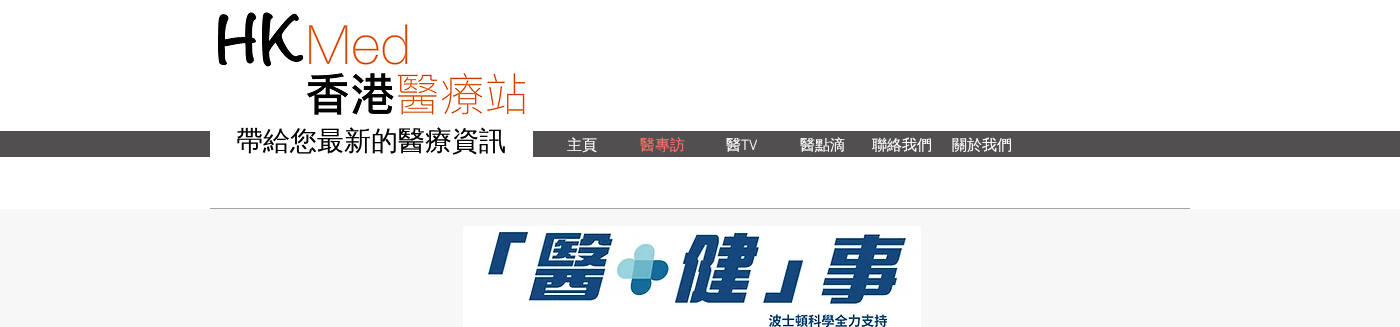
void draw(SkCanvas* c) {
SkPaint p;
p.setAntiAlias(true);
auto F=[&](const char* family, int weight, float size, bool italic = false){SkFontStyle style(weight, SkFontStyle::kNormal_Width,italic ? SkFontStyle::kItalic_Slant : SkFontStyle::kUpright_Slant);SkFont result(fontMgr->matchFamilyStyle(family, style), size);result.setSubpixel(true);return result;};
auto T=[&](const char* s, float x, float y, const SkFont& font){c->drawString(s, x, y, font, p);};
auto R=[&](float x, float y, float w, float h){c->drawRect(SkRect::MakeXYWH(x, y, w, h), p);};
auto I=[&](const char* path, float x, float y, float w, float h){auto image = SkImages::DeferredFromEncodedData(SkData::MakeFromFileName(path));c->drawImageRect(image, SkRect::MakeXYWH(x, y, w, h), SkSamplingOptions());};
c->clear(0xffffffff);
I("1.png",218,12,307,103);
p.setColor(0xff514f4f);
R(0,131,1400,26);
p.setColor(0xffffffff);
R(210,131,323,26);
auto f1 = F("WenQuanYi Zen Hei",500,27);
p.setColor(0xff030303);
T("帶給您最新的醫療資訊",236,150,f1);
auto f2 = F("WenQuanYi Zen Hei",500,15);
p.setColor(0xffffffff);
T("主頁",567,150,f2);
p.setColor(0xffff7266);
T("醫專訪",640,150,f2);
p.setColor(0xffffffff);
T("醫",726,150,f2);
auto f3 = F("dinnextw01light",300,15);
T("TV",741,150,f3);
T("醫點滴",800,150,f2);
T("聯絡我們",872,150,f2);
T("關於我們",952,150,f2);
p.setColor(0xffa6a6a6);
R(210,208,980,1);
p.setColor(0xfff7f7f7);
R(0,209,1400,118);
I("2.png",463,226,458,101);
}
